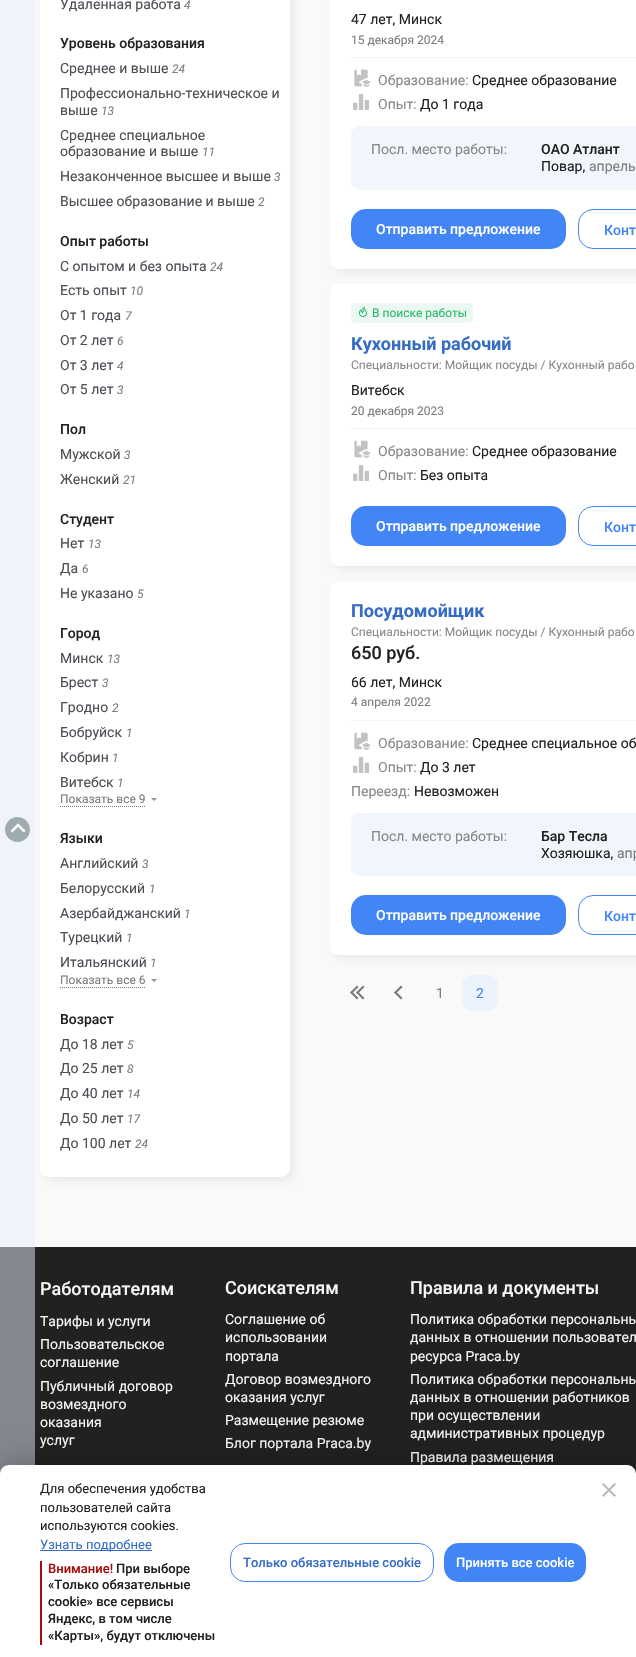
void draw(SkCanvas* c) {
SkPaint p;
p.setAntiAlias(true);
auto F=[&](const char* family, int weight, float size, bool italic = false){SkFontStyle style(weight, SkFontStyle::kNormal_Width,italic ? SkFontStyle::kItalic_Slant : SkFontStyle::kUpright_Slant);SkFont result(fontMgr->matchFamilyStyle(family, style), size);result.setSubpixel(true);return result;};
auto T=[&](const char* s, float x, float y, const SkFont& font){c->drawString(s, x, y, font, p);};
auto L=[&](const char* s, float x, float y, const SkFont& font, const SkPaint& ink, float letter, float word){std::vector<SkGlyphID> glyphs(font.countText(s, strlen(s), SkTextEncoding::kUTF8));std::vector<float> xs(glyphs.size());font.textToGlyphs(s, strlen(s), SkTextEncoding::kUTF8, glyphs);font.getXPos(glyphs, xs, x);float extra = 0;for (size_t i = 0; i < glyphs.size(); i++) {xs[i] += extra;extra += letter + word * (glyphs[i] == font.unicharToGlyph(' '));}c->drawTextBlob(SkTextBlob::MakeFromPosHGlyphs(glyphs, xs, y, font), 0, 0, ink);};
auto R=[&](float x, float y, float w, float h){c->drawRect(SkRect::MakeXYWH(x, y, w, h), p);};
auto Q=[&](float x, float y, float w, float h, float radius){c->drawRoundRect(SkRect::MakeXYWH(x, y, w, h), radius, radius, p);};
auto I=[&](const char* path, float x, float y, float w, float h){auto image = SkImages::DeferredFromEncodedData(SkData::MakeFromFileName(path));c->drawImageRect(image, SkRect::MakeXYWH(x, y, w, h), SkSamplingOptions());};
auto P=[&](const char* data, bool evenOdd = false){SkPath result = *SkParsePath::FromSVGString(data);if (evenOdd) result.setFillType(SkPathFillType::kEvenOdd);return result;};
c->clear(0xfff9f9f9);
p.setColor(0xffeef3fc);
R(0,0,35,1247);
p.setColor(0xff9facaf);
c->drawCircle(17.5,829.5,12.5,p);
I("1.png",10,823,16,10);
p.setColor(0xb3e1e2e7);
p.setMaskFilter(SkMaskFilter::MakeBlur(kNormal_SkBlurStyle, 4));
c->drawRoundRect(SkRect::MakeXYWH(44,-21,250,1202),9,9,p);
p.setMaskFilter(nullptr);
p.setColor(0xffffffff);
Q(40,-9,250,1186,9);
auto f1 = F("Roboto",400,14);
p.setColor(0xff4b4f54);
T("Удаленная работа",60,9,f1);
auto f2 = F("Roboto",400,12,true);
p.setColor(0xff7c7c7c);
T("4",184,9,f2);
auto f3 = F("Roboto",500,14);
p.setColor(0xff212121);
T("Уровень образования",60,48,f3);
p.setColor(0xff4b4f54);
T("Среднее и выше",60,73,f1);
p.setColor(0xff7c7c7c);
T("24",172,73,f2);
p.setColor(0xff4b4f54);
T("Профессионально-техническое и",60,98,f1);
T("выше",60,115,f1);
p.setColor(0xff7c7c7c);
T("13",101,115,f2);
p.setColor(0xff4b4f54);
T("Среднее специальное",60,140,f1);
T("образование и выше",60,156,f1);
p.setColor(0xff7c7c7c);
T("11",202,156,f2);
p.setColor(0xff4b4f54);
T("Незаконченное высшее и выше",60,181,f1);
p.setColor(0xff7c7c7c);
T("3",274,181,f2);
p.setColor(0xff4b4f54);
T("Высшее образование и выше",60,206,f1);
p.setColor(0xff7c7c7c);
T("2",258,206,f2);
p.setColor(0xff212121);
T("Опыт работы",60,246,f3);
p.setColor(0xff4b4f54);
T("С опытом и без опыта",60,271,f1);
p.setColor(0xff7c7c7c);
T("24",210,271,f2);
p.setColor(0xff4b4f54);
T("Есть опыт",60,295,f1);
p.setColor(0xff7c7c7c);
T("10",130,295,f2);
p.setColor(0xff4b4f54);
T("От 1 года",60,320,f1);
p.setColor(0xff7c7c7c);
T("7",125,320,f2);
p.setColor(0xff4b4f54);
T("От 2 лет",60,345,f1);
p.setColor(0xff7c7c7c);
T("6",117,345,f2);
p.setColor(0xff4b4f54);
T("От 3 лет",60,370,f1);
p.setColor(0xff7c7c7c);
T("4",117,370,f2);
p.setColor(0xff4b4f54);
T("От 5 лет",60,394,f1);
p.setColor(0xff7c7c7c);
T("3",117,394,f2);
p.setColor(0xff212121);
T("Пол",60,434,f3);
p.setColor(0xff4b4f54);
T("Мужской",60,459,f1);
p.setColor(0xff7c7c7c);
T("3",124,459,f2);
p.setColor(0xff4b4f54);
T("Женский",60,484,f1);
p.setColor(0xff7c7c7c);
T("21",123,484,f2);
p.setColor(0xff212121);
T("Студент",60,524,f3);
p.setColor(0xff4b4f54);
T("Нет",60,548,f1);
p.setColor(0xff7c7c7c);
T("13",88,548,f2);
p.setColor(0xff4b4f54);
T("Да",60,573,f1);
p.setColor(0xff7c7c7c);
T("6",82,573,f2);
p.setColor(0xff4b4f54);
T("Не указано",60,598,f1);
p.setColor(0xff7c7c7c);
T("5",137,598,f2);
p.setColor(0xff212121);
T("Город",60,638,f3);
p.setColor(0xff4b4f54);
T("Минск",60,663,f1);
p.setColor(0xff7c7c7c);
T("13",107,663,f2);
p.setColor(0xff4b4f54);
T("Брест",60,687,f1);
p.setColor(0xff7c7c7c);
T("3",102,687,f2);
p.setColor(0xff4b4f54);
T("Гродно",60,712,f1);
p.setColor(0xff7c7c7c);
T("2",112,712,f2);
p.setColor(0xff4b4f54);
T("Бобруйск",60,737,f1);
p.setColor(0xff7c7c7c);
T("1",126,737,f2);
p.setColor(0xff4b4f54);
T("Кобрин",60,762,f1);
p.setColor(0xff7c7c7c);
T("1",112,762,f2);
p.setColor(0xff4b4f54);
T("Витебск",60,787,f1);
p.setColor(0xff7c7c7c);
T("1",117,787,f2);
auto f4 = F("Roboto",400,12);
T("Показать все 9",60,803,f4);
p.setStroke(true);
p.setStrokeWidth(1);
p.setPathEffect(SkDashPathEffect::Make({{1,1}}, 0));
c->drawPath(P("M60 806.5h86"),p);
p.setPathEffect(nullptr);
p.setStroke(false);
p.setColor(0xff939598);
c->drawPath(P("M151 798h6l-3 3z"),p);
p.setColor(0xff212121);
T("Языки",60,843,f3);
p.setColor(0xff4b4f54);
T("Английский",60,868,f1);
p.setColor(0xff7c7c7c);
T("3",142,868,f2);
p.setColor(0xff4b4f54);
T("Белорусский",60,893,f1);
p.setColor(0xff7c7c7c);
T("1",149,893,f2);
p.setColor(0xff4b4f54);
T("Азербайджанский",60,918,f1);
p.setColor(0xff7c7c7c);
T("1",184,918,f2);
p.setColor(0xff4b4f54);
T("Турецкий",60,942,f1);
p.setColor(0xff7c7c7c);
T("1",126,942,f2);
p.setColor(0xff4b4f54);
T("Итальянский",60,967,f1);
p.setColor(0xff7c7c7c);
T("1",150,967,f2);
T("Показать все 6",60,984,f4);
p.setStroke(true);
p.setPathEffect(SkDashPathEffect::Make({{1,1}}, 0));
c->drawPath(P("M60 987.5h86"),p);
p.setPathEffect(nullptr);
p.setStroke(false);
p.setColor(0xff939598);
c->drawPath(P("M151 979h6l-3 3z"),p);
p.setColor(0xff212121);
T("Возраст",60,1024,f3);
p.setColor(0xff4b4f54);
T("До 18 лет",60,1049,f1);
p.setColor(0xff7c7c7c);
T("5",127,1049,f2);
p.setColor(0xff4b4f54);
T("До 25 лет",60,1073,f1);
p.setColor(0xff7c7c7c);
T("8",127,1073,f2);
p.setColor(0xff4b4f54);
T("До 40 лет",60,1098,f1);
p.setColor(0xff7c7c7c);
T("14",127,1098,f2);
p.setColor(0xff4b4f54);
T("До 50 лет",60,1123,f1);
p.setColor(0xff7c7c7c);
T("17",127,1123,f2);
p.setColor(0xff4b4f54);
T("До 100 лет",60,1148,f1);
p.setColor(0xff7c7c7c);
T("24",135,1148,f2);
p.setColor(0xb3e1e2e7);
p.setMaskFilter(SkMaskFilter::MakeBlur(kNormal_SkBlurStyle, 4));
c->drawRoundRect(SkRect::MakeXYWH(334,-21,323,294),9,9,p);
p.setMaskFilter(nullptr);
p.setColor(0xffffffff);
Q(330,-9,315,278,9);
p.setColor(0xfff5f4f4);
R(351,57,285,1);
p.setColor(0xff212121);
T("47 лет, Минск",351,24,f1);
p.setColor(0xff7c7c7c);
T("15 декабря 2024",351,44,f4);
I("2.png",354,69,17,18);
p.setColor(0xff888888);
T("Образование:",378,85,f1);
p.setColor(0xff212121);
T("Среднее образование",472,85,f1);
I("3.png",353,94,16,16);
p.setColor(0xff888888);
T("Опыт:",378,109,f1);
p.setColor(0xff212121);
T("До 1 года",420,109,f1);
p.setColor(0xfff1f5fc);
Q(351,126,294,64,9);
p.setColor(0xff888888);
T("Посл. место работы:",371,154,f1);
p.setColor(0xff212121);
T("ОАО Атлант",541,154,f3);
T("Повар,",541,171,f1);
p.setColor(0xff7c7c7c);
T("апрель",589,171,f1);
p.setColor(0xff4285f4);
Q(351,209,215,40,15);
p.setColor(0xffffffff);
T("Отправить предложение",376,234,f3);
p.setStroke(true);
p.setColor(0xff4285f4);
c->drawRoundRect(SkRect::MakeXYWH(578.5,209.5,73,39),14.5,14.5,p);
p.setStroke(false);
T("Конт",604,235,f3);
p.setColor(0xb3e1e2e7);
p.setMaskFilter(SkMaskFilter::MakeBlur(kNormal_SkBlurStyle, 4));
c->drawRoundRect(SkRect::MakeXYWH(334,288,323,282),9,9,p);
p.setMaskFilter(nullptr);
p.setColor(0xffffffff);
Q(330,284,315,282,9);
p.setColor(0xfff5f4f4);
R(351,428,285,1);
p.setColor(0xffeaf8f1);
Q(351,303,122,20,5);
I("4.png",359,306,8,11);
p.setColor(0xff2bb76b);
T("В поиске работы",372,317,f4);
auto f5 = F("Roboto",700,18);
p.setColor(0xff356cc4);
T("Кухонный рабочий",351,350,f5);
p.setColor(0xff888888);
T("Специальности: Мойщик посуды / Кухонный рабо",351,369,f4);
p.setColor(0xff212121);
T("Витебск",351,395,f1);
p.setColor(0xff7c7c7c);
T("20 декабря 2023",351,415,f4);
I("2.png",354,440,17,18);
p.setColor(0xff888888);
T("Образование:",378,456,f1);
p.setColor(0xff212121);
T("Среднее образование",472,456,f1);
I("3.png",353,465,16,16);
p.setColor(0xff888888);
T("Опыт:",378,480,f1);
p.setColor(0xff212121);
T("Без опыта",420,480,f1);
p.setColor(0xff4285f4);
Q(351,506,215,40,15);
p.setColor(0xffffffff);
T("Отправить предложение",376,531,f3);
p.setStroke(true);
p.setColor(0xff4285f4);
c->drawRoundRect(SkRect::MakeXYWH(578.5,506.5,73,39),14.5,14.5,p);
p.setStroke(false);
T("Конт",604,532,f3);
p.setColor(0xb3e1e2e7);
p.setMaskFilter(SkMaskFilter::MakeBlur(kNormal_SkBlurStyle, 4));
c->drawRoundRect(SkRect::MakeXYWH(334,585,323,374),9,9,p);
p.setMaskFilter(nullptr);
p.setColor(0xffffffff);
Q(330,581,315,374,9);
p.setColor(0xfff5f4f4);
R(351,720,285,1);
p.setColor(0xff356cc4);
T("Посудомойщик",351,617,f5);
p.setColor(0xff888888);
T("Специальности: Мойщик посуды / Кухонный рабо",351,636,f4);
auto f6 = F("Roboto",500,18);
p.setColor(0xff212121);
T("650 руб.",351,659,f6);
T("66 лет, Минск",351,687,f1);
p.setColor(0xff7c7c7c);
T("4 апреля 2022",351,706,f4);
I("2.png",354,732,17,18);
p.setColor(0xff888888);
T("Образование:",378,748,f1);
p.setColor(0xff212121);
T("Среднее специальное об",472,748,f1);
I("3.png",353,757,16,16);
p.setColor(0xff888888);
T("Опыт:",378,772,f1);
p.setColor(0xff212121);
T("До 3 лет",420,772,f1);
p.setColor(0xff888888);
T("Переезд:",351,796,f1);
p.setColor(0xff212121);
T("Невозможен",414,796,f1);
p.setColor(0xfff1f5fc);
Q(351,813,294,63,9);
p.setColor(0xff888888);
T("Посл. место работы:",371,841,f1);
p.setColor(0xff212121);
T("Бар Тесла",541,841,f3);
T("Хозяюшка,",541,858,f1);
p.setColor(0xff7c7c7c);
T("апр",617,858,f1);
p.setColor(0xff4285f4);
Q(351,895,215,40,15);
p.setColor(0xffffffff);
T("Отправить предложение",376,920,f3);
p.setStroke(true);
p.setColor(0xff4285f4);
c->drawRoundRect(SkRect::MakeXYWH(578.5,895.5,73,39),14.5,14.5,p);
p.setStroke(false);
T("Конт",604,921,f3);
p.setColor(0xff7c7c7c);
c->drawPath(P("M350 992.5l7-7l1.5 1.5l-7 7z"),p);
c->drawPath(P("M350 992.5l1.5-1.5l7 7l-1.5 1.5z"),p);
c->drawPath(P("M356 992.5l7-7l1.5 1.5l-7 7z"),p);
c->drawPath(P("M356 992.5l1.5-1.5l7 7l-1.5 1.5zm38 0l7-7l1.5 1.5l-7 7z"),p);
L("1",436,998,f1,p,1,0);
p.setColor(0xffecf2fc);
Q(462,975,36,36,10);
p.setColor(0xff4285f4);
L("2",476,998,f1,p,1,0);
p.setColor(0xff7c7c7c);
c->drawPath(P("M394 992.5l1.5-1.5l7 7l-1.5 1.5z"),p);
p.setColor(0xff212121);
R(35,1247,601,227);
p.setColor(0xff828790);
R(0,1247,35,227);
p.setColor(0xfff7f7f7);
T("Работодателям",40,1295,f6);
T("Тарифы и услуги",40,1326,f1);
T("Пользовательское",40,1349,f1);
T("соглашение",40,1367,f1);
T("Публичный договор",40,1391,f1);
T("возмездного",40,1409,f1);
T("оказания",40,1427,f1);
T("услуг",40,1445,f1);
T("Соискателям",225,1294,f6);
T("Соглашение об",225,1324,f1);
T("использовании",225,1342,f1);
T("портала",225,1361,f1);
T("Договор возмездного",225,1384,f1);
T("оказания услуг",225,1402,f1);
T("Размещение резюме",225,1425,f1);
T("Блог портала Praca.by",225,1448,f1);
T("Правила и документы",410,1294,f6);
T("Политика обработки персональны",410,1324,f1);
T("данных в отношении пользовател",410,1342,f1);
T("ресурса Praca.by",410,1361,f1);
T("Политикa обработки персональны",410,1384,f1);
T("данных в отношении работников",410,1402,f1);
T("при осуществлении",410,1420,f1);
T("административных процедур",410,1438,f1);
T("Правила размещения",410,1462,f1);
p.setColor(0x38000000);
p.setMaskFilter(SkMaskFilter::MakeBlur(kNormal_SkBlurStyle, 15));
c->drawRoundRect(SkRect::MakeXYWH(0,1463,636,192),9,9,p);
p.setMaskFilter(nullptr);
p.setColor(0xffffffff);
c->drawPath(P("M9 1465h618c5 0 9 4 9 9v183h-636v-183c0-5 4-9 9-9z"),p);
auto f7 = F("Roboto",400,13);
p.setColor(0xff212121);
T("Для обеспечения удобства",40,1493,f7);
T("пользователей сайта",40,1512,f7);
T("используются cookies.",40,1530,f7);
p.setColor(0xff356cc4);
R(40,1550,112,1);
T("Узнать подробнее",40,1549,f7);
p.setColor(0xffa70c0d);
R(40,1561,2,84);
auto f8 = F("Roboto",500,13);
T("Внимание!",48,1573,f8);
p.setColor(0xff212121);
T("При выборе",116,1573,f8);
T("«Только обязательные",48,1589,f8);
T("cookie» все сервисы",48,1606,f8);
T("Яндекс, в том числе",48,1623,f8);
T("«Карты», будут отключены",48,1640,f8);
p.setStroke(true);
p.setColor(0xff4285f4);
c->drawRoundRect(SkRect::MakeXYWH(230.5,1543.5,203,38),14.5,14.5,p);
p.setStroke(false);
p.setColor(0xff356cc4);
T("Только обязательные cookie",243,1567,f8);
p.setColor(0xff4285f4);
Q(444,1543,142,39,15);
p.setColor(0xffffffff);
T("Принять все cookie",456,1567,f8);
I("5.png",602,1483,14,14);
}
